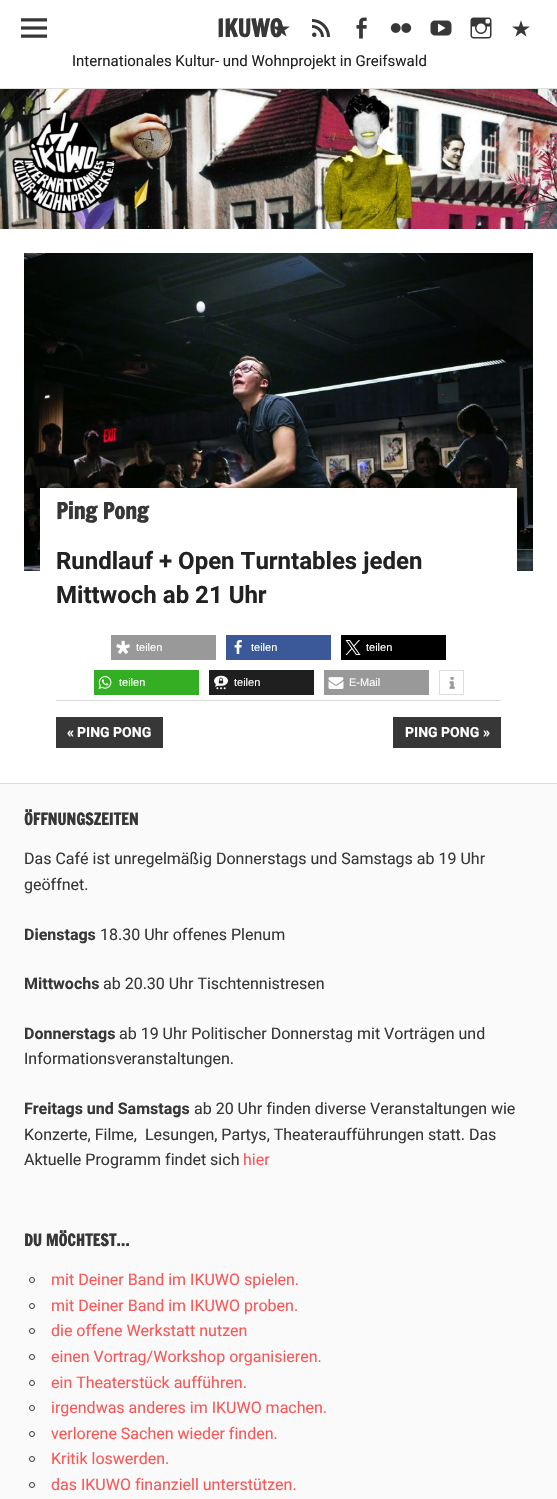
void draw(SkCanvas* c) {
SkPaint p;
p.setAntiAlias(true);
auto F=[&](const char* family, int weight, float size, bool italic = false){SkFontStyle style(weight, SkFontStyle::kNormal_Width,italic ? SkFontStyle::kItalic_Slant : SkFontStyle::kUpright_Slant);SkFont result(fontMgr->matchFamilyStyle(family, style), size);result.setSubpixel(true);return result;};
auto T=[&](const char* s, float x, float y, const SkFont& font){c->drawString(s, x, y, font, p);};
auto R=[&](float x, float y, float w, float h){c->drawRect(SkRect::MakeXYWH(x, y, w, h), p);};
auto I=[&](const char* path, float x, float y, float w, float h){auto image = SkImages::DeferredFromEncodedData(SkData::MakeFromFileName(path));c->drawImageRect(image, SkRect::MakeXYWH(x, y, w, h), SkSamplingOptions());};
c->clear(0xffffffff);
p.setColor(0xffdfdfdf);
R(0,88,557,1);
I("1.png",21,18,26,20);
auto f1 = F("Francois One",700,24);
p.setColor(0xff373737);
T("IKUWO",217,37,f1);
I("2.png",273,20,17,17);
I("3.png",312,19,18,18);
I("4.png",356,17,11,22);
I("5.png",390,23,22,10);
I("6.png",430,20,22,16);
I("7.png",470,17,22,22);
I("8.png",512,20,18,17);
auto f2 = F("Roboto",400,15);
p.setColor(0xff222222);
T("Internationales Kultur- und Wohnprojekt in Greifswald",72,66,f2);
I("9.png",0,89,557,140);
I("10.png",24,253,509,318);
p.setColor(0xffffffff);
R(40,488,477,83);
auto f3 = F("Francois One",700,22);
p.setColor(0xff373737);
T("Ping Pong",56,519,f3);
auto f4 = F("Roboto",700,24);
p.setColor(0xff222222);
T("Rundlauf + Open Turntables jeden",56,569,f4);
T("Mittwoch ab 21 Uhr",56,603,f4);
p.setColor(0xff999999);
R(111,635,105,25);
I("11.png",116,640,14,14);
auto f5 = F("Liberation Sans",400,11);
p.setColor(0xffffffff);
T("teilen",136,651,f5);
p.setColor(0xff3b5998);
R(226,635,105,25);
I("12.png",234,640,8,14);
p.setColor(0xffffffff);
T("teilen",251,651,f5);
p.setColor(0xff000000);
R(341,635,105,25);
I("13.png",345,640,16,15);
p.setColor(0xffffffff);
T("teilen",366,651,f5);
p.setColor(0xff34af23);
R(94,670,105,25);
I("14.png",98,676,14,13);
p.setColor(0xffffffff);
T("teilen",119,686,f5);
p.setColor(0xff1f1f1f);
R(209,670,105,25);
I("15.png",214,675,15,15);
p.setColor(0xffffffff);
T("teilen",234,686,f5);
p.setColor(0xff999999);
R(324,670,105,25);
I("16.png",328,677,16,12);
p.setColor(0xffffffff);
T("E-Mail",349,686,f5);
p.setStroke(true);
p.setStrokeWidth(1);
p.setColor(0xffdddddd);
c->drawRect(SkRect::MakeXYWH(439.5,670.5,24,24),p);
I("17.png",449,677,6,12);
p.setStroke(false);
R(56,700,445,1);
p.setColor(0xff373737);
R(56,717,107,31);
auto f6 = F("Roboto",700,14);
p.setColor(0xffffffff);
T("«",67,737,f6);
T("PING PONG",77,737,f6);
p.setColor(0xff373737);
R(393,717,108,31);
p.setColor(0xffffffff);
T("PING PONG",405,737,f6);
T("»",483,737,f6);
p.setColor(0xfffafafa);
R(0,784,557,715);
p.setColor(0xffdddddd);
R(0,783,557,1);
auto f7 = F("Francois One",700,16);
p.setColor(0xff373737);
T("ÖFFNUNGSZEITEN",24,825,f7);
auto f8 = F("Roboto",400,16);
T("Das Café ist unregelmäßig Donnerstags und Samstags ab 19 Uhr",24,864,f8);
T("geöffnet.",24,890,f8);
auto f9 = F("Roboto",700,16);
T("Dienstags",24,940,f9);
T("18.30 Uhr offenes Plenum",100,940,f8);
T("Mittwochs",24,989,f9);
T("ab 20.30 Uhr Tischtennistresen",103,989,f8);
T("Donnerstags",24,1039,f9);
T("ab 19 Uhr Politischer Donnerstag mit Vorträgen und",119,1039,f8);
T("Informationsveranstaltungen.",24,1064,f8);
T("Freitags und Samstags",24,1114,f9);
T("ab 20 Uhr finden diverse Veranstaltungen wie",194,1114,f8);
T("Konzerte, Filme,  Lesungen, Partys, Theateraufführungen statt. Das",24,1140,f8);
T("Aktuelle Programm findet sich",24,1165,f8);
p.setColor(0xffff5555);
T("hier",243,1165,f8);
p.setColor(0xff373737);
T("DU MÖCHTEST…",24,1246,f7);
p.setStroke(true);
c->drawCircle(32,1280,2.5,p);
p.setStroke(false);
p.setColor(0xffff5555);
T("mit Deiner Band im IKUWO spielen.",51,1285,f8);
p.setStroke(true);
p.setColor(0xff373737);
c->drawCircle(32,1306,2.5,p);
p.setStroke(false);
p.setColor(0xffff5555);
T("mit Deiner Band im IKUWO proben.",51,1311,f8);
p.setStroke(true);
p.setColor(0xff373737);
c->drawCircle(32,1331,2.5,p);
p.setStroke(false);
p.setColor(0xffff5555);
T("die offene Werkstatt nutzen",51,1336,f8);
p.setStroke(true);
p.setColor(0xff373737);
c->drawCircle(32,1357,2.5,p);
p.setStroke(false);
p.setColor(0xffff5555);
T("einen Vortrag/Workshop organisieren.",51,1362,f8);
p.setStroke(true);
p.setColor(0xff373737);
c->drawCircle(32,1383,2.5,p);
p.setStroke(false);
p.setColor(0xffff5555);
T("ein Theaterstück aufführen.",51,1388,f8);
p.setStroke(true);
p.setColor(0xff373737);
c->drawCircle(32,1408,2.5,p);
p.setStroke(false);
p.setColor(0xffff5555);
T("irgendwas anderes im IKUWO machen.",51,1413,f8);
p.setStroke(true);
p.setColor(0xff373737);
c->drawCircle(32,1434,2.5,p);
p.setStroke(false);
p.setColor(0xffff5555);
T("verlorene Sachen wieder finden.",51,1439,f8);
p.setStroke(true);
p.setColor(0xff373737);
c->drawCircle(32,1459,2.5,p);
p.setStroke(false);
p.setColor(0xffff5555);
T("Kritik loswerden.",51,1464,f8);
p.setStroke(true);
p.setColor(0xff373737);
c->drawCircle(32,1485,2.5,p);
p.setStroke(false);
p.setColor(0xffff5555);
T("das IKUWO finanziell unterstützen.",51,1490,f8);
}
